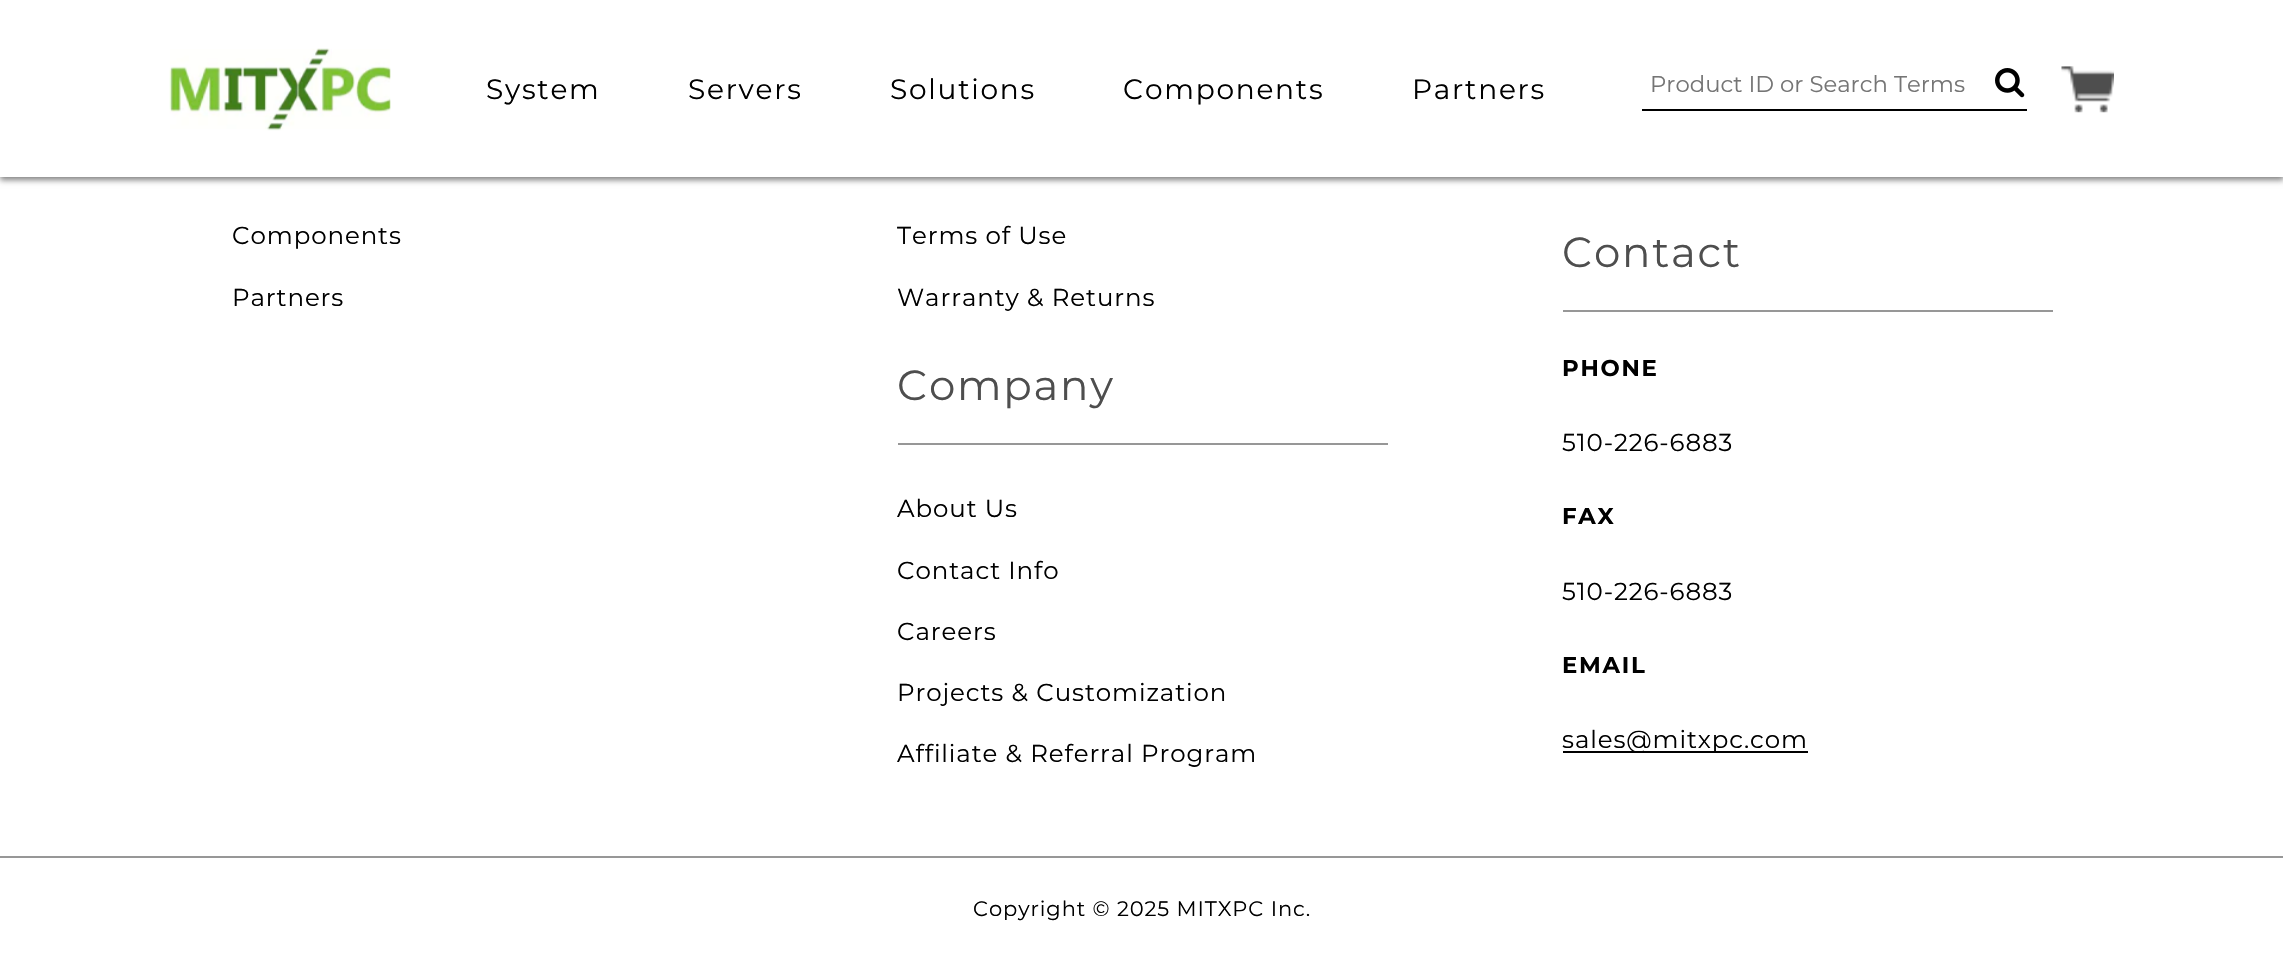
void draw(SkCanvas* c) {
SkPaint p;
p.setAntiAlias(true);
auto F=[&](const char* family, int weight, float size, bool italic = false){SkFontStyle style(weight, SkFontStyle::kNormal_Width,italic ? SkFontStyle::kItalic_Slant : SkFontStyle::kUpright_Slant);SkFont result(fontMgr->matchFamilyStyle(family, style), size);result.setSubpixel(true);return result;};
auto T=[&](const char* s, float x, float y, const SkFont& font){c->drawString(s, x, y, font, p);};
auto L=[&](const char* s, float x, float y, const SkFont& font, const SkPaint& ink, float letter, float word){std::vector<SkGlyphID> glyphs(font.countText(s, strlen(s), SkTextEncoding::kUTF8));std::vector<float> xs(glyphs.size());font.textToGlyphs(s, strlen(s), SkTextEncoding::kUTF8, glyphs);font.getXPos(glyphs, xs, x);float extra = 0;for (size_t i = 0; i < glyphs.size(); i++) {xs[i] += extra;extra += letter + word * (glyphs[i] == font.unicharToGlyph(' '));}c->drawTextBlob(SkTextBlob::MakeFromPosHGlyphs(glyphs, xs, y, font), 0, 0, ink);};
auto R=[&](float x, float y, float w, float h){c->drawRect(SkRect::MakeXYWH(x, y, w, h), p);};
auto I=[&](const char* path, float x, float y, float w, float h){auto image = SkImages::DeferredFromEncodedData(SkData::MakeFromFileName(path));c->drawImageRect(image, SkRect::MakeXYWH(x, y, w, h), SkSamplingOptions());};
c->clear(0xffffffff);
p.setColor(0x80000000);
p.setMaskFilter(SkMaskFilter::MakeBlur(kNormal_SkBlurStyle, 3));
c->drawRect(SkRect::MakeXYWH(0,-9,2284,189),p);
p.setMaskFilter(nullptr);
p.setColor(0xffffffff);
R(0,0,2283,177);
I("1.png",169,48,222,83);
auto f1 = F("Montserrat",400,28);
p.setColor(0xff000000);
L("System",486,99,f1,p,1.75,0);
L("Servers",688,99,f1,p,1.75,0);
L("Solutions",890,99,f1,p,1.75,0);
L("Components",1123,99,f1,p,1.75,0);
L("Partners",1412,99,f1,p,1.75,0);
R(1642,109,385,2);
auto f2 = F("Montserrat",400,22.75);
p.setColor(0xff757575);
T("Product ID or Search Terms",1650,92,f2);
I("2.png",1995,68,30,30);
I("3.png",2061,66,53,47);
auto f3 = F("Montserrat",400,24.5);
p.setColor(0xff000000);
L("Components",232,244,f3,p,.9,0);
L("Partners",232,306,f3,p,.9,0);
L("Terms of Use",897,244,f3,p,.9,0);
L("Warranty & Returns",897,306,f3,p,.9,0);
p.setColor(0xff979797);
R(898,443,490,2);
auto f4 = F("Montserrat",400,42);
p.setColor(0xff4e4e4e);
L("Company",897,400,f4,p,1.75,0);
p.setColor(0xff000000);
L("About Us",897,517,f3,p,.9,0);
L("Contact Info",897,579,f3,p,.9,0);
L("Careers",897,640,f3,p,.9,0);
L("Projects & Customization",897,701,f3,p,.9,0);
L("Affiliate & Referral Program",897,762,f3,p,.9,0);
p.setColor(0xff979797);
R(1563,310,490,2);
p.setColor(0xff4e4e4e);
L("Contact",1562,267,f4,p,1.75,0);
auto f5 = F("Montserrat",700,22.75);
p.setColor(0xff000000);
L("PHONE",1562,376,f5,p,1.75,0);
L("510-226-6883",1562,451,f3,p,.9,0);
L("FAX",1562,524,f5,p,1.75,0);
L("510-226-6883",1562,600,f3,p,.9,0);
L("EMAIL",1562,673,f5,p,1.75,0);
R(1563,751,245,2);
L("sales@mitxpc.com",1562,748,f3,p,.9,0);
p.setColor(0xff979797);
R(0,856,2283,2);
auto f6 = F("Montserrat",400,21);
p.setColor(0xff000000);
L("Copyright © 2025 MITXPC Inc.",973,916,f6,p,.9,0);
}
